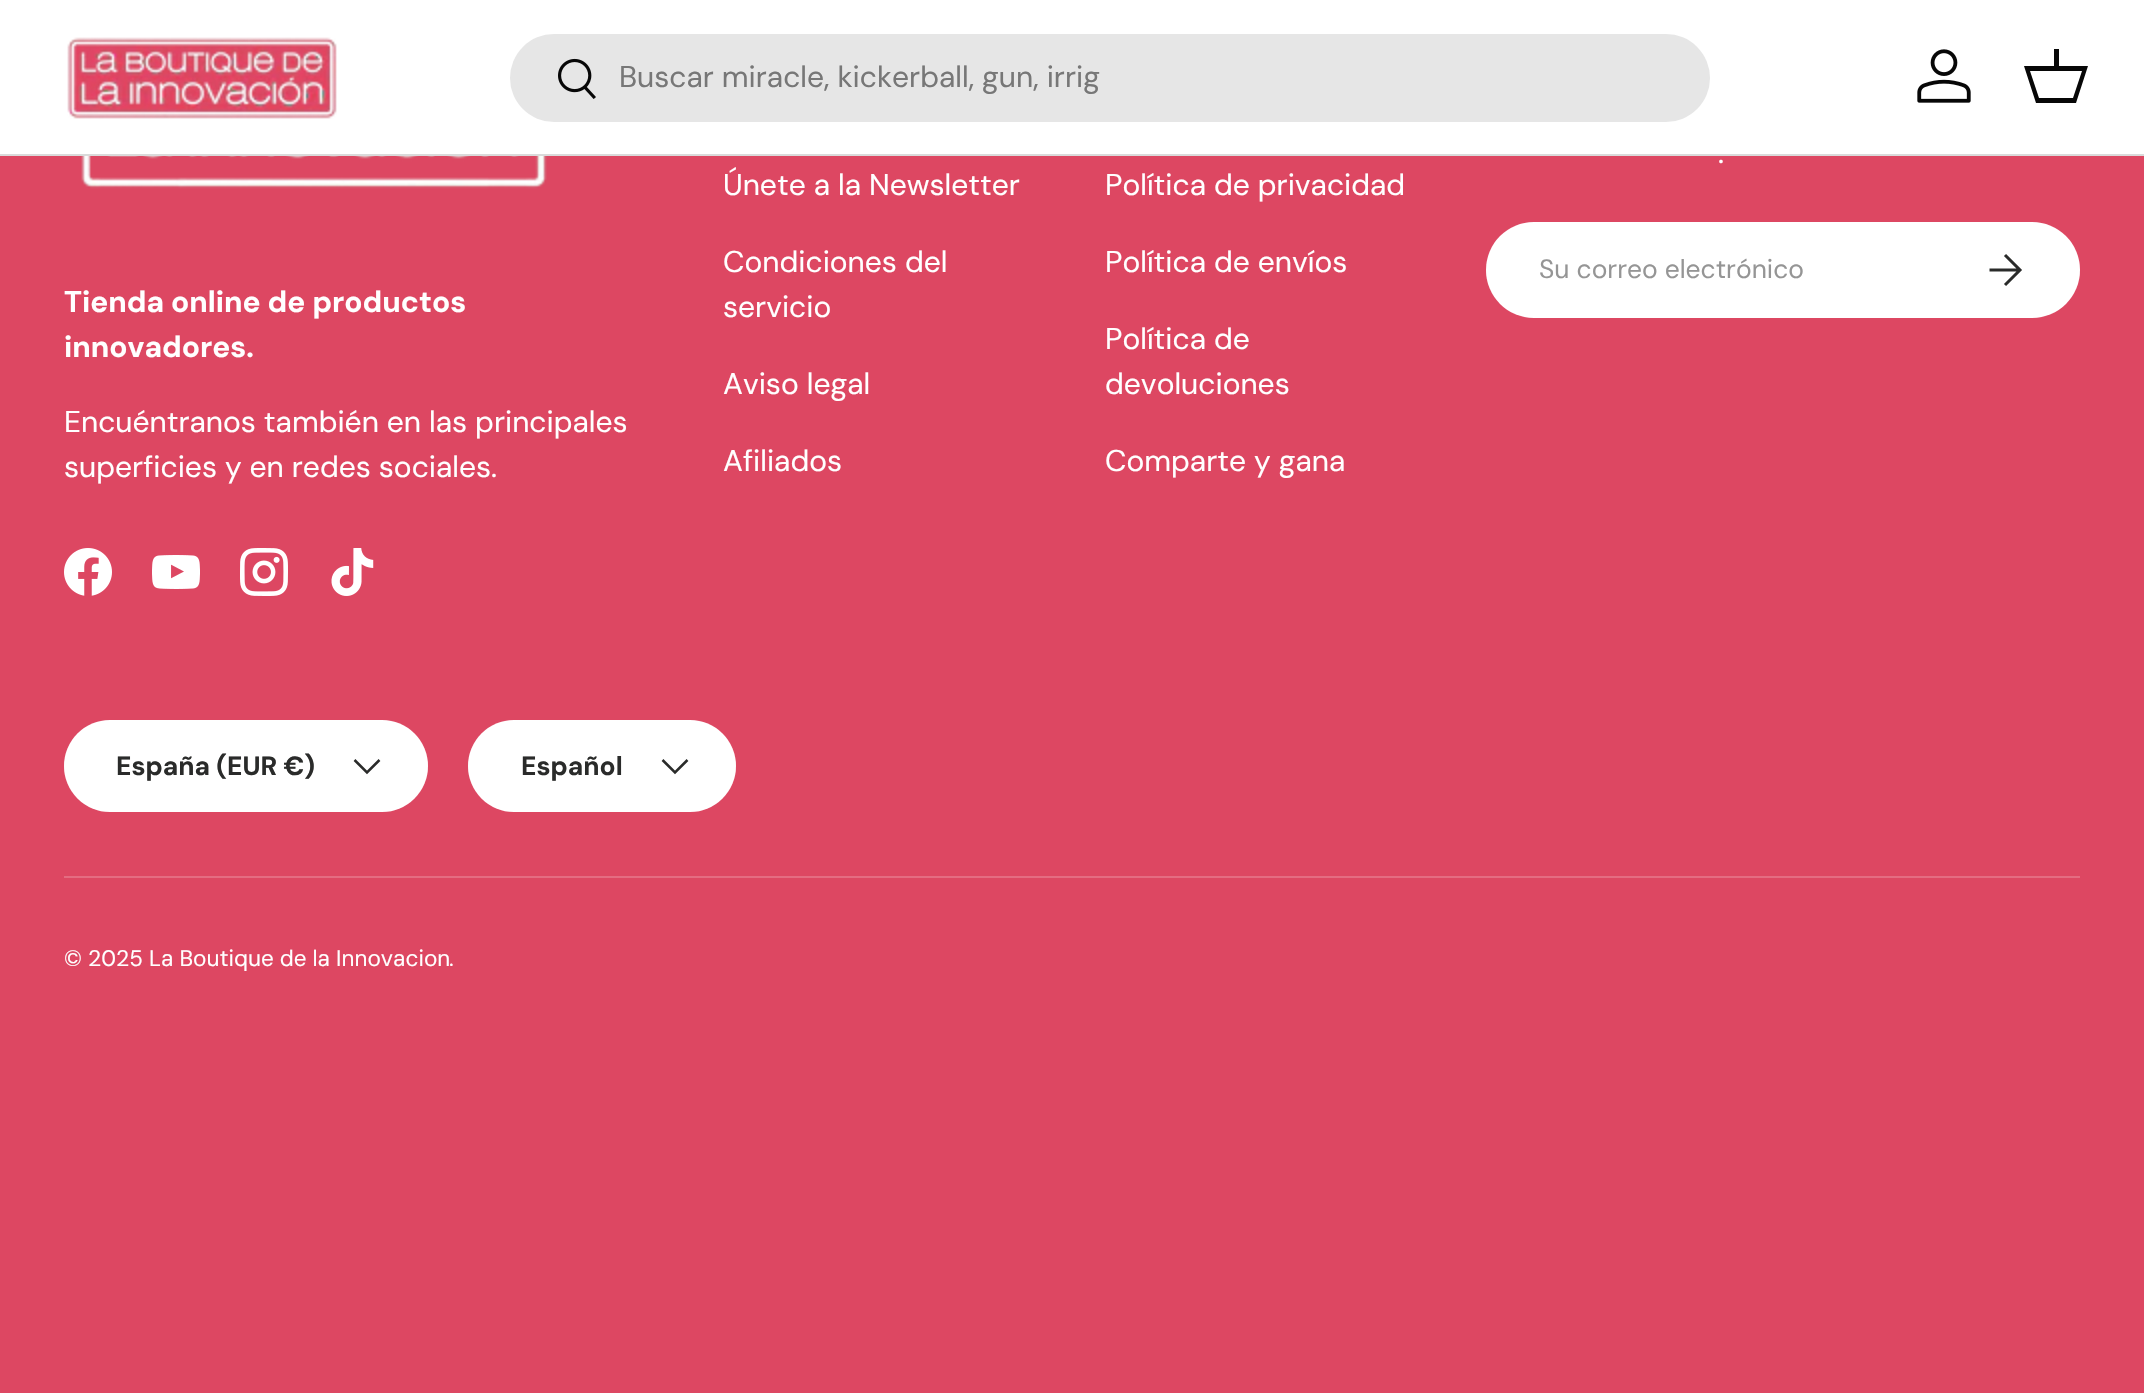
void draw(SkCanvas* c) {
SkPaint p;
p.setAntiAlias(true);
auto F=[&](const char* family, int weight, float size, bool italic = false){SkFontStyle style(weight, SkFontStyle::kNormal_Width,italic ? SkFontStyle::kItalic_Slant : SkFontStyle::kUpright_Slant);SkFont result(fontMgr->matchFamilyStyle(family, style), size);result.setSubpixel(true);return result;};
auto T=[&](const char* s, float x, float y, const SkFont& font){c->drawString(s, x, y, font, p);};
auto R=[&](float x, float y, float w, float h){c->drawRect(SkRect::MakeXYWH(x, y, w, h), p);};
auto Q=[&](float x, float y, float w, float h, float radius){c->drawRoundRect(SkRect::MakeXYWH(x, y, w, h), radius, radius, p);};
auto I=[&](const char* path, float x, float y, float w, float h){auto image = SkImages::DeferredFromEncodedData(SkData::MakeFromFileName(path));c->drawImageRect(image, SkRect::MakeXYWH(x, y, w, h), SkSamplingOptions());};
auto P=[&](const char* data, bool evenOdd = false){SkPath result = *SkParsePath::FromSVGString(data);if (evenOdd) result.setFillType(SkPathFillType::kEvenOdd);return result;};
c->clear(0xffdd4762);
p.setColor(0xffffffff);
R(0,0,2144,154);
p.setColor(0xffdadada);
R(0,154,2144,2);
I("1.png",67,37,270,82);
p.setColor(0xffe6e6e6);
Q(510,34,1200,88,44);
I("2.png",558,58,38,41);
auto f1 = F("DM Sans",400,30);
p.setColor(0xff777777);
T("Buscar miracle, kickerball, gun, irrig",619,87,f1);
I("3.png",1917,49,54,54);
p.setColor(0xff070707);
c->drawPath(P("M2054 66v-17h5v17h29l-12 37h-40l-12-37zm-24 5l9 27h34l9-27z"),p);
I("4.png",81,156,466,33);
auto f2 = F("DM Sans",700,30);
p.setColor(0xffffffff);
T("Tienda online de productos",64,312,f2);
T("innovadores.",64,357,f2);
T("Encuéntranos también en las principales",64,432,f1);
T("superficies y en redes sociales.",64,477,f1);
I("5.png",64,548,48,48);
I("6.png",152,555,48,34);
I("7.png",240,548,48,48);
I("8.png",331,548,43,48);
T("Únete a la Newsletter",723,195,f1);
T("Condiciones del",723,272,f1);
T("servicio",723,317,f1);
T("Aviso legal",723,394,f1);
T("Afiliados",723,471,f1);
T("Política de privacidad",1105,195,f1);
T("Política de envíos",1105,272,f1);
T("Política de",1105,349,f1);
T("devoluciones",1105,394,f1);
T("Comparte y gana",1105,471,f1);
T(".",1718,163,f1);
Q(1486,222,594,96,48);
p.setStroke(true);
p.setStrokeWidth(4);
p.setColor(0x33ffffff);
c->drawRoundRect(SkRect::MakeXYWH(1488,224,590,92),46,46,p);
auto f3 = F("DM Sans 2",400,26.4);
p.setStroke(false);
p.setColor(0xff959595);
T("Su correo electrónico",1539,278,f3);
p.setStroke(true);
p.setStrokeWidth(3);
p.setColor(0xff2a2b2a);
c->drawPath(P("M1989.5 270h29.5m-14-15l15 15l-15 15"),p);
p.setStroke(false);
p.setColor(0xffffffff);
Q(64,720,364,92,46);
p.setStroke(true);
p.setStrokeWidth(4);
p.setColor(0x33ffffff);
c->drawRoundRect(SkRect::MakeXYWH(66,722,360,88),44,44,p);
auto f4 = F("DM Sans 2",700,26.4);
p.setStroke(false);
p.setColor(0xff2a2b2a);
T("España (EUR €)",116,775,f4);
p.setStroke(true);
p.setStrokeWidth(2.5);
c->drawPath(P("M379.5 760l-12.5 12.5l-12.5-12.5"),p);
p.setStroke(false);
p.setColor(0xffffffff);
Q(468,720,268,92,46);
p.setStroke(true);
p.setStrokeWidth(4);
p.setColor(0x33ffffff);
c->drawRoundRect(SkRect::MakeXYWH(470,722,264,88),44,44,p);
p.setStroke(false);
p.setColor(0xff2a2b2a);
T("Español",521,775,f4);
p.setStroke(true);
p.setStrokeWidth(2.5);
c->drawPath(P("M687.5 760l-12.5 12.5l-12.5-12.5"),p);
p.setStroke(false);
p.setColor(0xffe46c81);
R(64,876,2016,2);
auto f5 = F("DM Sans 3",400,22.5);
p.setColor(0xffffffff);
T("© 2025",64,966,f5);
T("La Boutique de la Innovacion",149,966,f5);
T(".",449,966,f5);
}
